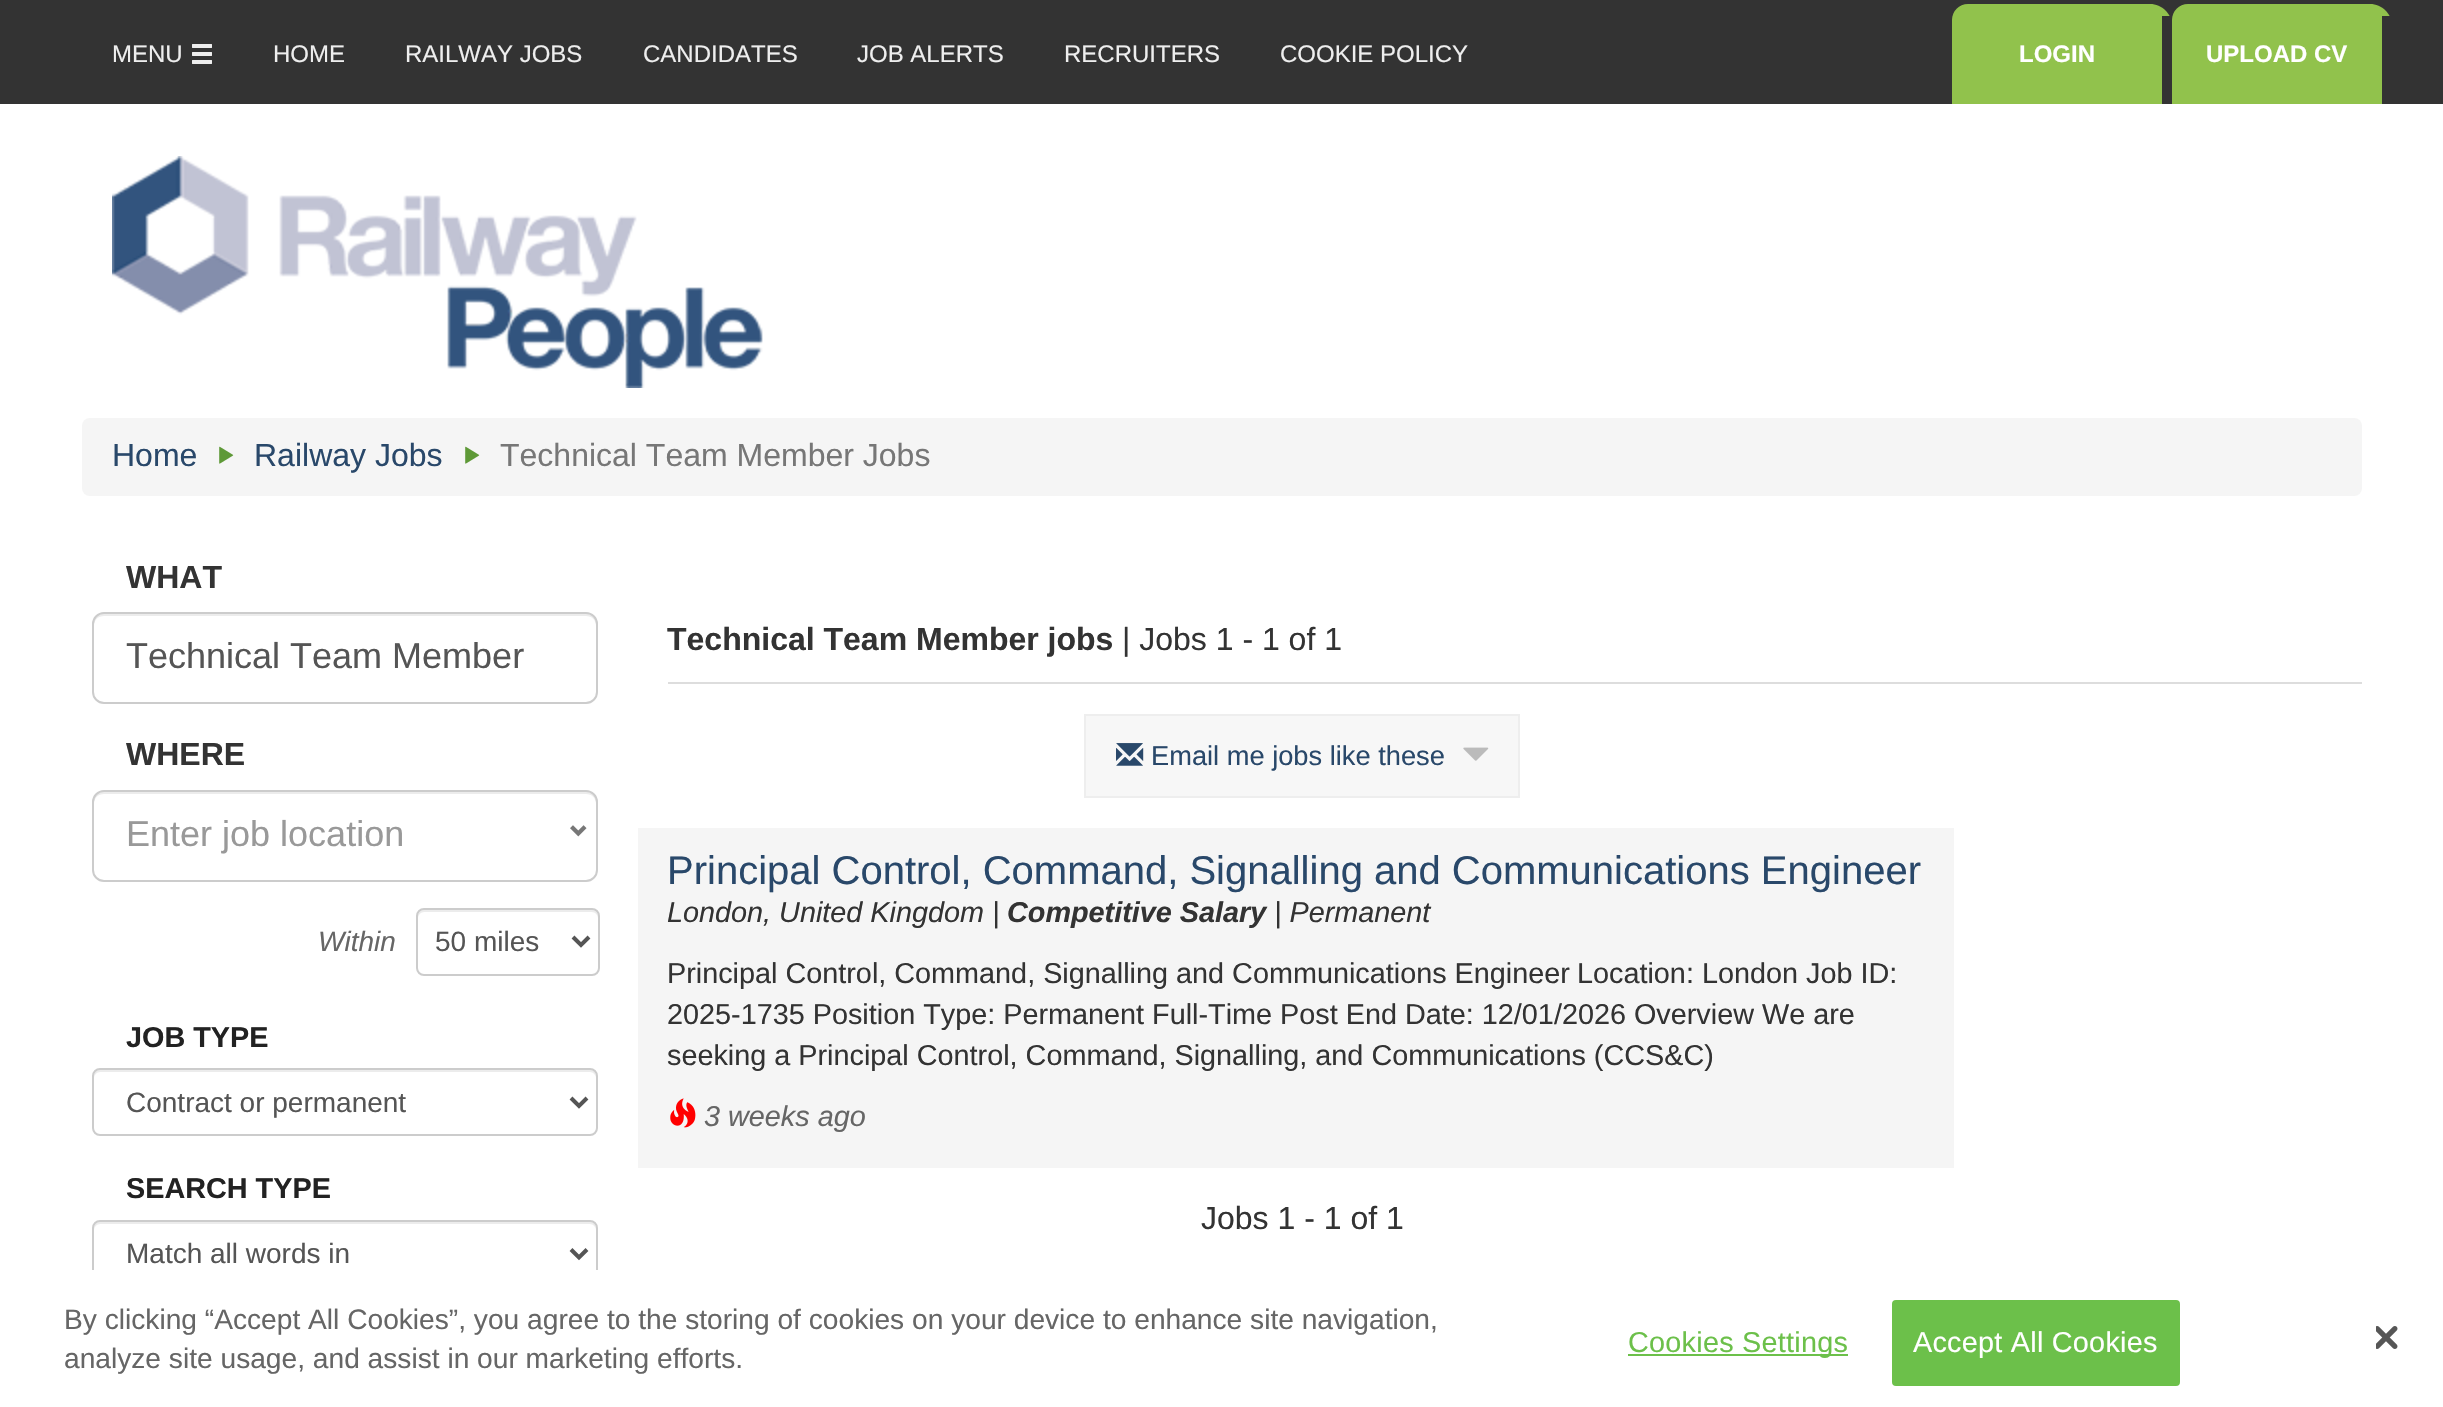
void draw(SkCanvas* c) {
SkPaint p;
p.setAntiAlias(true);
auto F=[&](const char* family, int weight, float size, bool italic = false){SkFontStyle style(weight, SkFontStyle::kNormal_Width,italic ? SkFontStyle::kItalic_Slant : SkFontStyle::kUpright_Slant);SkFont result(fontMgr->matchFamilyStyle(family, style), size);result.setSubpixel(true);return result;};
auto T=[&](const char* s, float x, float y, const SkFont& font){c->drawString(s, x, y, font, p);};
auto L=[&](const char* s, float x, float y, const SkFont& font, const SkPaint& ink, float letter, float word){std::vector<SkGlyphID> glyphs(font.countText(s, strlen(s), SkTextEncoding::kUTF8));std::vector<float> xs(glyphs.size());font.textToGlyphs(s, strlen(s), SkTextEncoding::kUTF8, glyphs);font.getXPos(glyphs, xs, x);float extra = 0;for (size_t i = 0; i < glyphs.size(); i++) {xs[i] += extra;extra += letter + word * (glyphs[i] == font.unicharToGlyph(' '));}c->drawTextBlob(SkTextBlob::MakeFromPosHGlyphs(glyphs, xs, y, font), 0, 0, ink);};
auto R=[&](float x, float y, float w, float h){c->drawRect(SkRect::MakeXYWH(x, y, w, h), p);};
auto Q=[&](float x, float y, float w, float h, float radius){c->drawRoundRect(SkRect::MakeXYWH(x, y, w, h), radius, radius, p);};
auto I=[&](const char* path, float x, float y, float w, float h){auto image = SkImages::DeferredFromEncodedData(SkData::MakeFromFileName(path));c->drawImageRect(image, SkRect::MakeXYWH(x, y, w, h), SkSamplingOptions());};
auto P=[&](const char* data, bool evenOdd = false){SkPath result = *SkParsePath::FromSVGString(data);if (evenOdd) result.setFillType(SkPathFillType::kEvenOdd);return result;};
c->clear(0xffffffff);
p.setColor(0xff333333);
R(0,0,2443,104);
auto f1 = F("Liberation Sans",400,24);
p.setColor(0xffeeeeee);
T("MENU",112,62,f1);
I("1.png",192,44,20,20);
T("HOME",273,62,f1);
T("RAILWAY JOBS",405,62,f1);
T("CANDIDATES",643,62,f1);
T("JOB ALERTS",857,62,f1);
T("RECRUITERS",1064,62,f1);
T("COOKIE POLICY",1280,62,f1);
p.setColor(0xff91c24c);
c->drawPath(P("M1968 4h182c12 0 22 10 22 22v78h-220v-84c0-9 7-16 16-16z"),p);
p.setColor(0xff333333);
R(2162,16,10,88);
auto f2 = F("Liberation Sans",700,24);
p.setColor(0xffffffff);
T("LOGIN",2019,62,f2);
p.setColor(0xff91c24c);
c->drawPath(P("M2188 4h182c12 0 22 10 22 22v78h-220v-84c0-9 7-16 16-16z"),p);
p.setColor(0xff333333);
R(2382,16,10,88);
p.setColor(0xffffffff);
T("UPLOAD CV",2206,62,f2);
I("2.png",112,156,651,232);
p.setColor(0xfff5f5f5);
Q(82,418,2280,78,8);
auto f3 = F("Liberation Sans",400,32);
p.setColor(0xff29486a);
T("Home",112,466,f3);
I("3.png",219,446,15,18);
T("Railway Jobs",254,466,f3);
I("3.png",465,446,15,18);
p.setColor(0xff777777);
T("Technical Team Member Jobs",500,466,f3);
auto f4 = F("Liberation Sans",700,32);
p.setColor(0xff333333);
T("WHAT",126,588,f4);
p.setColor(0xffececec);
c->drawPath(P("M104 616h482c6 0 10 4 10 10v-2c0-6-4-10-10-10h-482c-6 0-10 4-10 10v2c0-6 4-10 10-10z"),p);
p.setStroke(true);
p.setStrokeWidth(2);
p.setColor(0xffcccccc);
c->drawRoundRect(SkRect::MakeXYWH(93,613,504,90),11,11,p);
auto f5 = F("Liberation Sans",400,36);
p.setStroke(false);
p.setColor(0xff555555);
T("Technical Team Member",126,668,f5);
p.setColor(0xff333333);
T("WHERE",126,765,f4);
p.setColor(0xffececec);
c->drawPath(P("M104 794h482c6 0 10 4 10 10v-2c0-6-4-10-10-10h-482c-6 0-10 4-10 10v2c0-6 4-10 10-10z"),p);
p.setStroke(true);
p.setColor(0xffcccccc);
c->drawRoundRect(SkRect::MakeXYWH(93,791,504,90),11,11,p);
p.setStroke(false);
p.setColor(0xff999999);
T("Enter job location",126,846,f5);
I("4.png",570,825,17,12);
auto f6 = F("Liberation Sans",400,28,true);
p.setColor(0xff666666);
T("Within",318,951,f6);
p.setColor(0xffececec);
c->drawPath(P("M424 912h168c3 0 6 3 6 6v-2c0-3-3-6-6-6h-168c-3 0-6 3-6 6v2c0-3 3-6 6-6z"),p);
p.setStroke(true);
p.setColor(0xffcccccc);
c->drawRoundRect(SkRect::MakeXYWH(417,909,182,66),7,7,p);
p.setStrokeWidth(4);
p.setColor(0xff555555);
c->drawPath(P("M573 937l8 8l8-8"),p);
auto f7 = F("Liberation Sans",400,28);
p.setStroke(false);
T("50 miles",435,951,f7);
auto f8 = F("Liberation Sans",700,28.8);
p.setColor(0xff222222);
T("JOB TYPE",126,1047,f8);
p.setColor(0xffececec);
c->drawPath(P("M100 1072h490c3 0 6 3 6 6c0-4-1-8-6-8h-490c-5 0-6 4-6 8c0-3 3-6 6-6z"),p);
p.setStroke(true);
p.setStrokeWidth(2);
p.setColor(0xffcccccc);
c->drawRoundRect(SkRect::MakeXYWH(93,1069,504,66),7,7,p);
p.setStrokeWidth(4);
p.setColor(0xff555555);
c->drawPath(P("M571 1098l8 8l8-8"),p);
p.setStroke(false);
T("Contract or permanent",126,1112,f7);
p.setColor(0xff222222);
T("SEARCH TYPE",126,1198,f8);
p.setColor(0xffececec);
c->drawPath(P("M100 1224h490c3 0 6 3 6 6c0-4-1-8-6-8h-490c-5 0-6 4-6 8c0-3 3-6 6-6z"),p);
p.setStroke(true);
p.setStrokeWidth(2);
p.setColor(0xffcccccc);
c->drawRoundRect(SkRect::MakeXYWH(93,1221,504,66),7,7,p);
p.setStrokeWidth(4);
p.setColor(0xff555555);
c->drawPath(P("M571 1249.5l8 8l8-8"),p);
p.setStroke(false);
T("Match all words in",126,1263,f7);
p.setColor(0xffdddddd);
R(668,682,1694,2);
p.setColor(0xff333333);
T("Technical Team Member jobs",667,650,f4);
T("| Jobs 1 - 1 of 1",1122,650,f3);
p.setColor(0xfff7f7f7);
c->drawRect(SkRect::MakeXYWH(1085,715,434,82),p);
p.setStroke(true);
p.setStrokeWidth(2);
p.setColor(0xffeeeeee);
c->drawRect(SkRect::MakeXYWH(1085,715,434,82),p);
I("5.png",1116,743,28,23);
auto f9 = F("Liberation Sans",400,27.25);
p.setStroke(false);
p.setColor(0xff29486a);
T("Email me jobs like these",1151,765,f9);
I("6.png",1463,747,26,14);
p.setColor(0xfff5f5f5);
R(638,828,1316,340);
auto f10 = F("Liberation Sans",400,40);
p.setColor(0xff29486a);
T("Principal Control, Command, Signalling and Communications Engineer",667,884,f10);
auto f11 = F("Liberation Sans",400,28.8,true);
p.setColor(0xff333333);
T("London, United Kingdom |",667,922,f11);
auto f12 = F("Liberation Sans",700,28.8,true);
T("Competitive Salary",1007,922,f12);
T("| Permanent",1274,922,f11);
auto f13 = F("Liberation Sans",400,28.8);
T("Principal Control, Command, Signalling and Communications Engineer",667,983,f13);
T("Location: London Job ID:",1577,983,f13);
T("2025-1735 Position Type: Permanent Full-Time Post End Date: 12/01/2026 Overview We are",667,1024,f13);
T("seeking a Principal Control, Command, Signalling, and Communications (CCS&C)",667,1065,f13);
I("7.png",670,1098,26,30);
p.setColor(0xff666666);
T("3 weeks ago",704,1126,f11);
p.setColor(0xff333333);
T("Jobs 1 - 1 of 1",1201,1229,f3);
p.setColor(0xffffffff);
R(92,1270,506,18);
auto f14 = F("Liberation Sans",400,28.15);
p.setColor(0xff666666);
T("By clicking “Accept All Cookies”, you agree to the storing of cookies on your device to enhance site navigation,",64,1329,f14);
T("analyze site usage, and assist in our marketing efforts.",64,1368,f14);
p.setColor(0xff6cc04a);
R(1628,1354,220,2);
L("Cookies Settings",1628,1352,f13,p,.25,0);
c->drawRoundRect(SkRect::MakeXYWH(1893,1301,286,84),3,3,p);
p.setStroke(true);
c->drawRoundRect(SkRect::MakeXYWH(1893,1301,286,84),3,3,p);
p.setStroke(false);
p.setColor(0xffffffff);
L("Accept All Cookies",1913,1352,f13,p,.25,0);
I("8.png",2376,1326,22,23);
}
